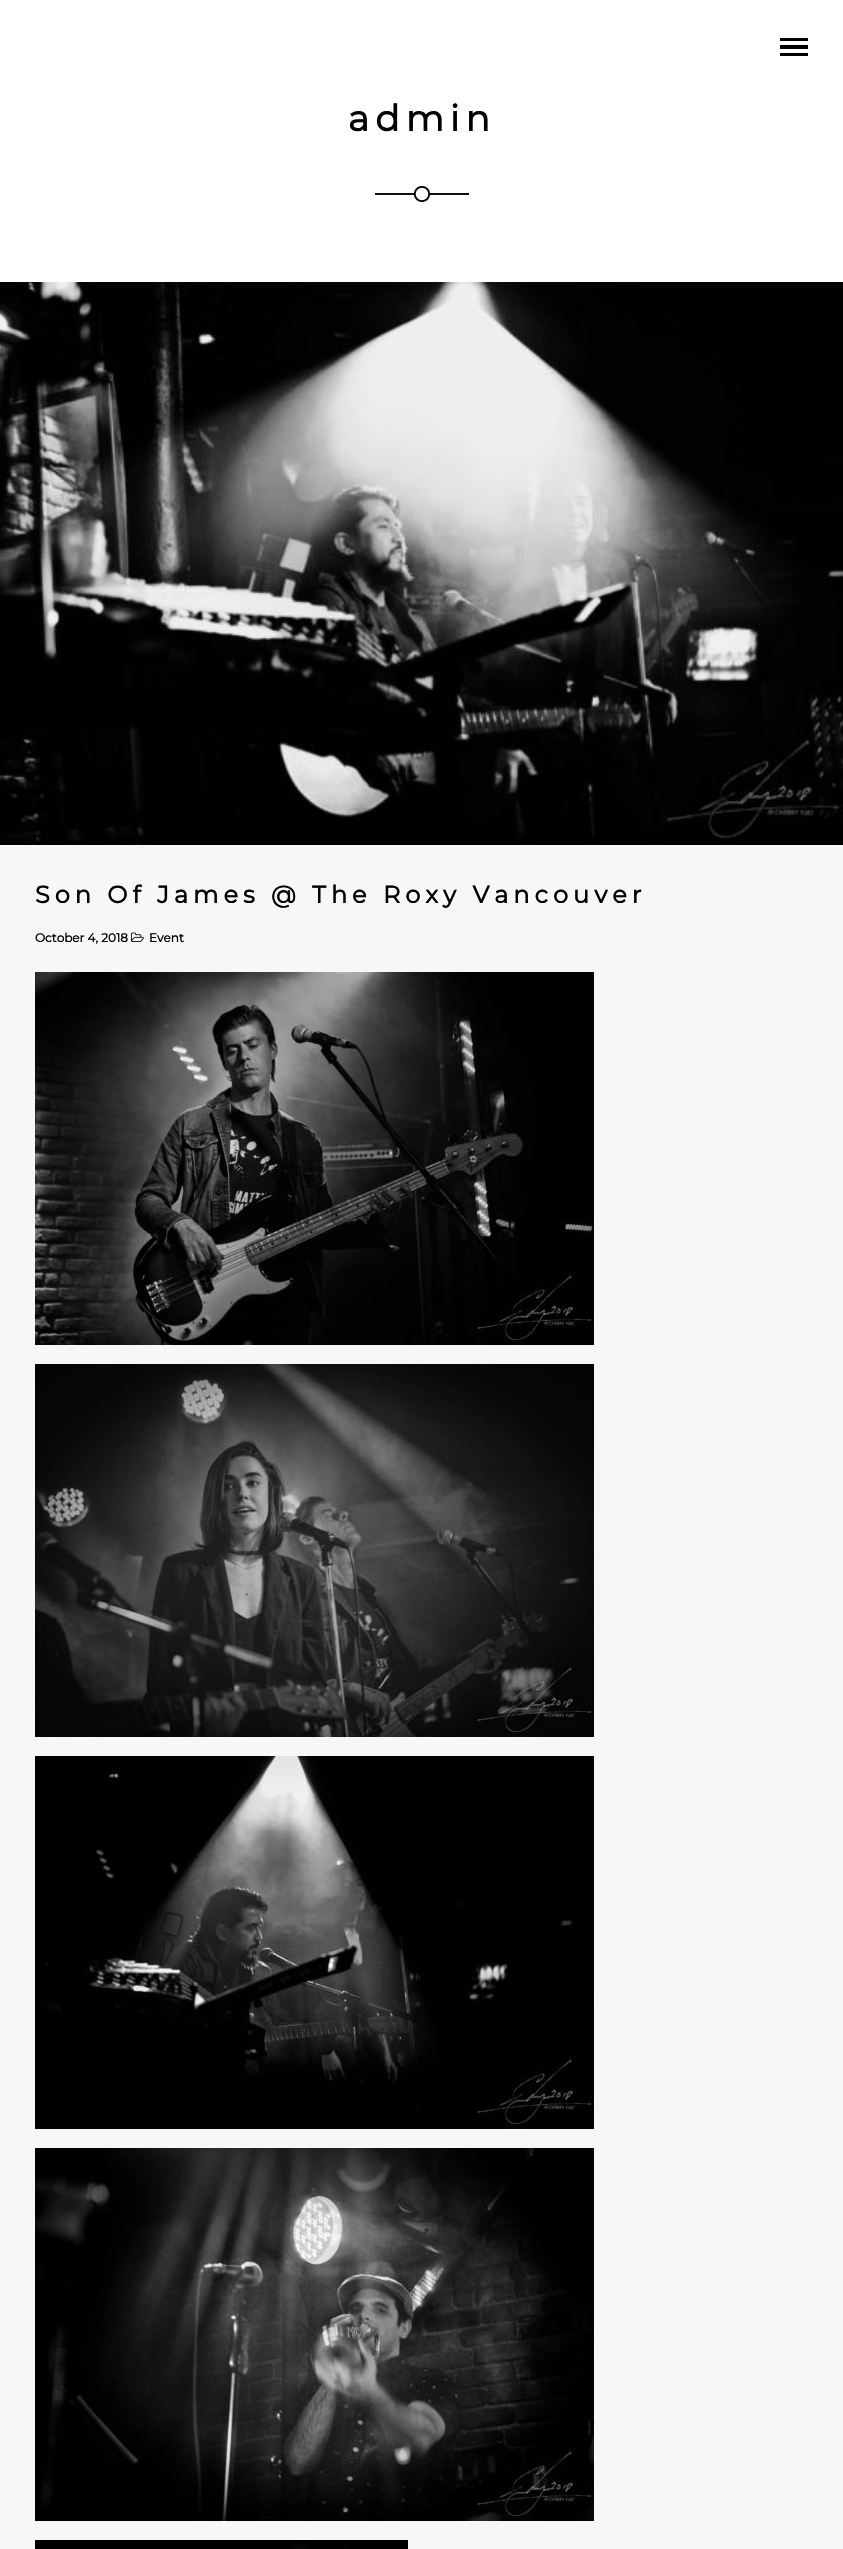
void draw(SkCanvas* c) {
SkPaint p;
p.setAntiAlias(true);
auto F=[&](const char* family, int weight, float size, bool italic = false){SkFontStyle style(weight, SkFontStyle::kNormal_Width,italic ? SkFontStyle::kItalic_Slant : SkFontStyle::kUpright_Slant);SkFont result(fontMgr->matchFamilyStyle(family, style), size);result.setSubpixel(true);return result;};
auto T=[&](const char* s, float x, float y, const SkFont& font){c->drawString(s, x, y, font, p);};
auto L=[&](const char* s, float x, float y, const SkFont& font, const SkPaint& ink, float letter, float word){std::vector<SkGlyphID> glyphs(font.countText(s, strlen(s), SkTextEncoding::kUTF8));std::vector<float> xs(glyphs.size());font.textToGlyphs(s, strlen(s), SkTextEncoding::kUTF8, glyphs);font.getXPos(glyphs, xs, x);float extra = 0;for (size_t i = 0; i < glyphs.size(); i++) {xs[i] += extra;extra += letter + word * (glyphs[i] == font.unicharToGlyph(' '));}c->drawTextBlob(SkTextBlob::MakeFromPosHGlyphs(glyphs, xs, y, font), 0, 0, ink);};
auto R=[&](float x, float y, float w, float h){c->drawRect(SkRect::MakeXYWH(x, y, w, h), p);};
auto I=[&](const char* path, float x, float y, float w, float h){auto image = SkImages::DeferredFromEncodedData(SkData::MakeFromFileName(path));c->drawImageRect(image, SkRect::MakeXYWH(x, y, w, h), SkSamplingOptions());};
c->clear(0xffffffff);
p.setColor(0xff000000);
R(780,38,28,3);
R(780,45,28,4);
R(780,53,28,3);
auto f1 = F("Montserrat",700,36);
L("admin",348,131,f1,p,6,0);
I("1.png",375,186,94,16);
p.setColor(0xfff7f7f7);
R(0,845,843,1704);
I("2.png",0,282,843,563);
auto f2 = F("Montserrat",700,24);
p.setColor(0xff000000);
L("Son Of James @ The Roxy Vancouver",35,903,f2,p,5,0);
auto f3 = F("Montserrat",700,12);
T("October 4, 2018",35,942,f3);
I("3.png",131,932,13,10);
T("Event",149,942,f3);
I("4.png",35,972,559,373);
I("5.png",35,1364,559,373);
I("6.png",35,1756,559,373);
I("7.png",35,2148,559,373);
I("8.png",35,2540,373,9);
}
